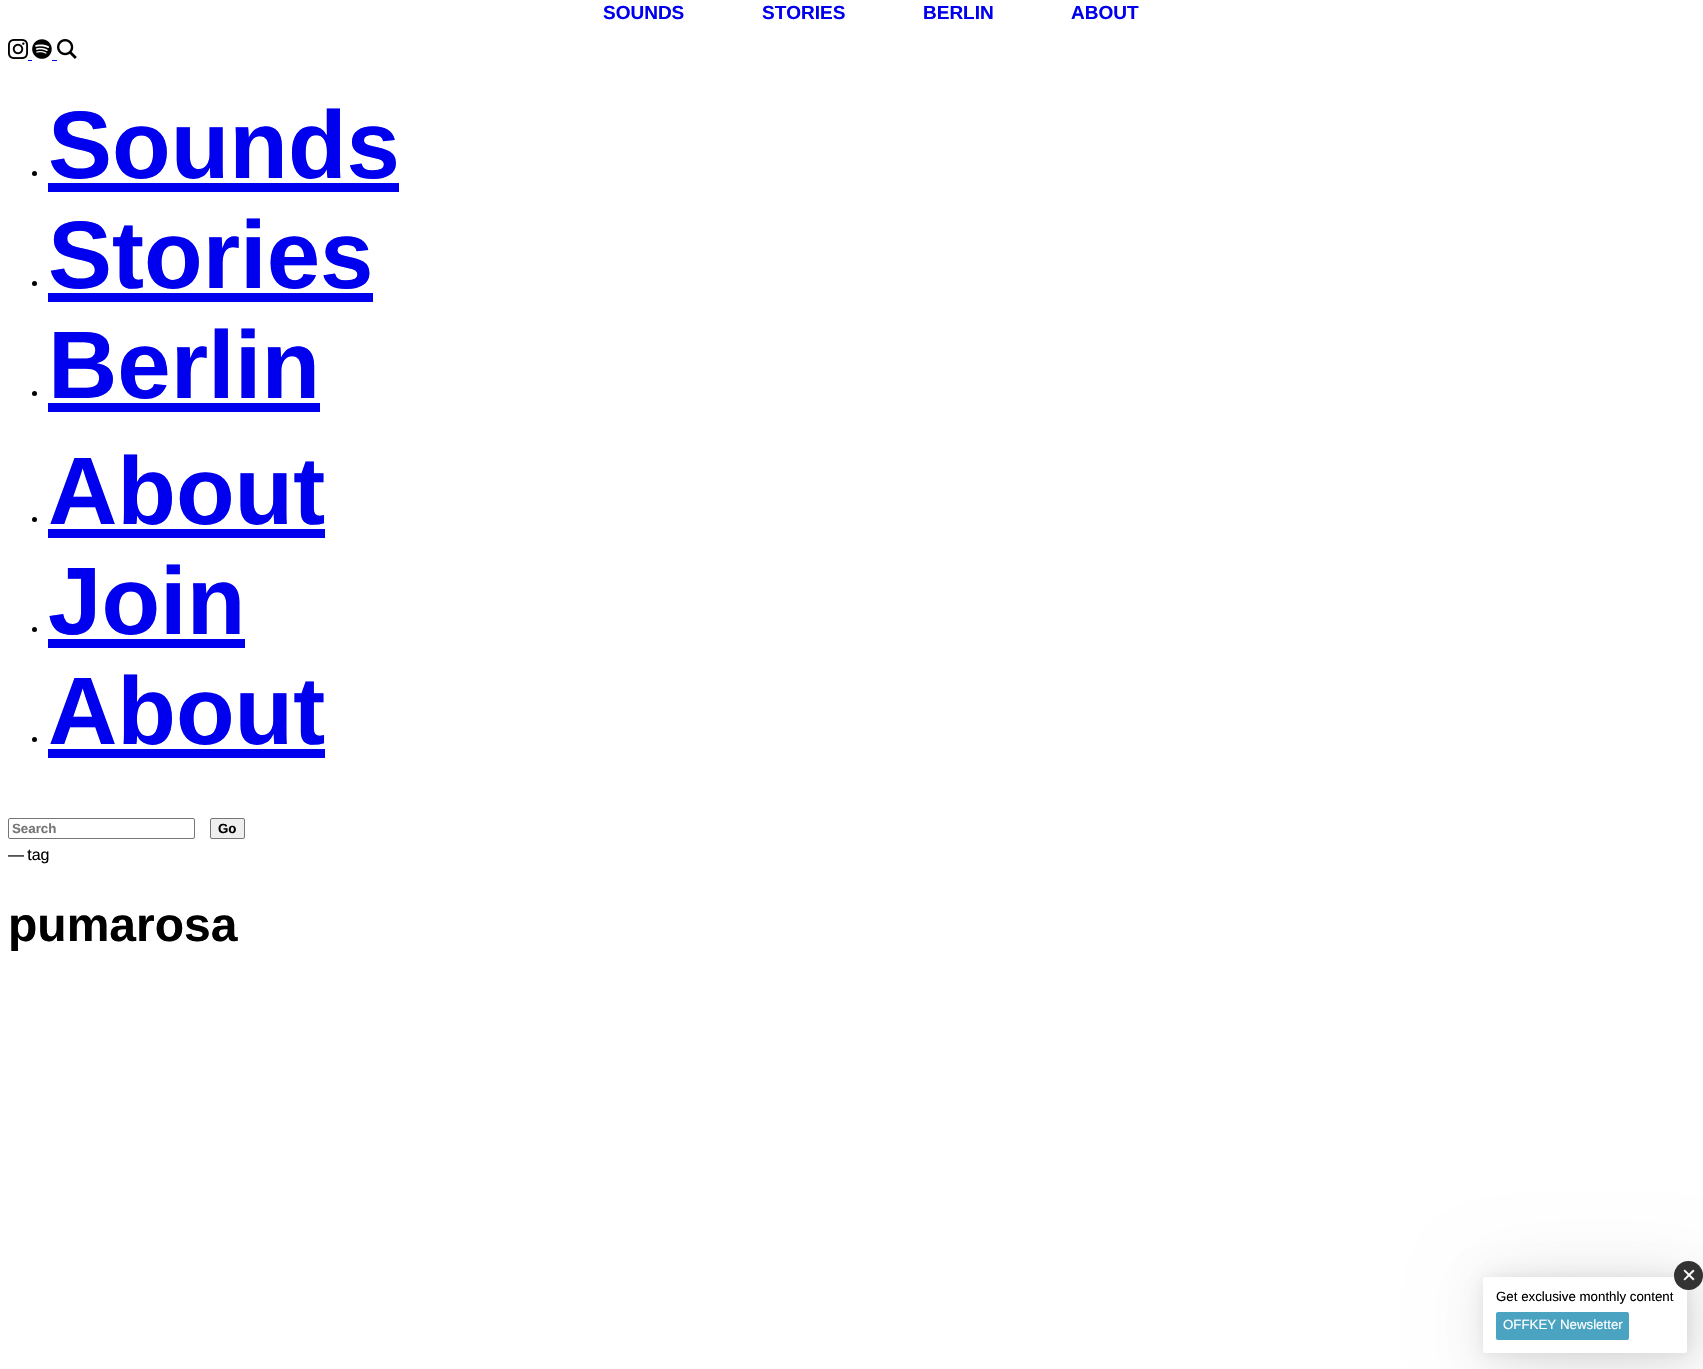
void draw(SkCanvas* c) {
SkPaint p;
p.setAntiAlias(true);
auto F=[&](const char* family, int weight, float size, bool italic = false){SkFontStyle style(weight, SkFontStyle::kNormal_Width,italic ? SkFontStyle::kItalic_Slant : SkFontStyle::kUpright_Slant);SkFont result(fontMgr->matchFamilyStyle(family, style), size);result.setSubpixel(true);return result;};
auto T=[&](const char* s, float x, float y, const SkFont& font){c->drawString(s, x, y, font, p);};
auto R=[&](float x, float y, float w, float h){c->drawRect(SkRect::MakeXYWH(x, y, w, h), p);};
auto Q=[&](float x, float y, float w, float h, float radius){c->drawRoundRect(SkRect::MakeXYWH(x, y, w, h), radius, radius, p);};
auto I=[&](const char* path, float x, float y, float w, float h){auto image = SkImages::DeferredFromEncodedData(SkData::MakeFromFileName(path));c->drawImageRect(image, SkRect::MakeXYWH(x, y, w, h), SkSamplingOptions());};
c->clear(0xffffffff);
auto f1 = F("Liberation Sans",700,19);
p.setColor(0xff0000ee);
T("SOUNDS",603,19,f1);
T("STORIES",762,19,f1);
T("BERLIN",923,19,f1);
T("ABOUT",1071,19,f1);
I("1.png",8,39,20,20);
I("2.png",32,39,20,20);
I("3.png",57,39,20,20);
R(28,60,4,1);
R(52,60,5,1);
p.setColor(0xff000000);
c->drawCircle(34.5,173.5,2.5,p);
auto f2 = F("Liberation Sans",700,96);
p.setColor(0xff0000ee);
T("Sounds",48,178,f2);
R(48,183,351,9);
p.setColor(0xff000000);
c->drawCircle(34.5,283.5,2.5,p);
p.setColor(0xff0000ee);
T("Stories",48,288,f2);
R(48,293,325,9);
p.setColor(0xff000000);
c->drawCircle(34.5,393.5,2.5,p);
p.setColor(0xff0000ee);
T("Berlin",48,398,f2);
R(48,403,272,9);
p.setColor(0xff000000);
c->drawCircle(34.5,519.5,2.5,p);
p.setColor(0xff0000ee);
T("About",48,524,f2);
R(48,529,277,9);
p.setColor(0xff000000);
c->drawCircle(34.5,629.5,2.5,p);
p.setColor(0xff0000ee);
T("Join",48,634,f2);
R(48,639,197,9);
p.setColor(0xff000000);
c->drawCircle(34.5,739.5,2.5,p);
p.setColor(0xff0000ee);
T("About",48,744,f2);
R(48,749,277,9);
p.setStroke(true);
p.setStrokeWidth(1);
p.setColor(0xff767676);
c->drawRoundRect(SkRect::MakeXYWH(8.5,818.5,186,20),1.5,1.5,p);
auto f3 = F("Liberation Sans",700,13.3);
p.setStroke(false);
p.setColor(0xff757575);
T("Search",12,833,f3);
p.setColor(0xffefefef);
c->drawRoundRect(SkRect::MakeXYWH(210.5,818.5,34,20),1.5,1.5,p);
p.setStroke(true);
p.setColor(0xff767676);
c->drawRoundRect(SkRect::MakeXYWH(210.5,818.5,34,20),1.5,1.5,p);
p.setStroke(false);
p.setColor(0xff000000);
T("Go",218,833,f3);
auto f4 = F("Liberation Sans",400,16);
T("— tag",8,860,f4);
auto f5 = F("Liberation Sans",700,48);
T("pumarosa",8,941,f5);
p.setColor(0x1c000000);
p.setMaskFilter(SkMaskFilter::MakeBlur(kNormal_SkBlurStyle, 40));
c->drawRoundRect(SkRect::MakeXYWH(1494,1287,204,76),2,2,p);
p.setMaskFilter(nullptr);
p.setColor(0x12000000);
p.setMaskFilter(SkMaskFilter::MakeBlur(kNormal_SkBlurStyle, 16));
c->drawRoundRect(SkRect::MakeXYWH(1486,1280,204,76),2,2,p);
p.setMaskFilter(nullptr);
p.setColor(0x0f000000);
p.setMaskFilter(SkMaskFilter::MakeBlur(kNormal_SkBlurStyle, 6));
c->drawRoundRect(SkRect::MakeXYWH(1484,1278,204,76),2,2,p);
p.setMaskFilter(nullptr);
p.setColor(0xffffffff);
Q(1483,1277,204,76,2);
p.setColor(0xff343333);
c->drawCircle(1688.5,1275.5,14.5,p);
auto f6 = F("Liberation Sans",400,24);
p.setColor(0xffffffff);
T("×",1682,1283,f6);
auto f7 = F("Liberation Sans",400,13.3);
p.setColor(0xff000000);
T("Get exclusive monthly content",1496,1301,f7);
p.setColor(0xff4aa4c1);
Q(1496,1312,133,28,2);
p.setColor(0xffffffff);
T("OFFKEY Newsletter",1503,1329,f7);
}
